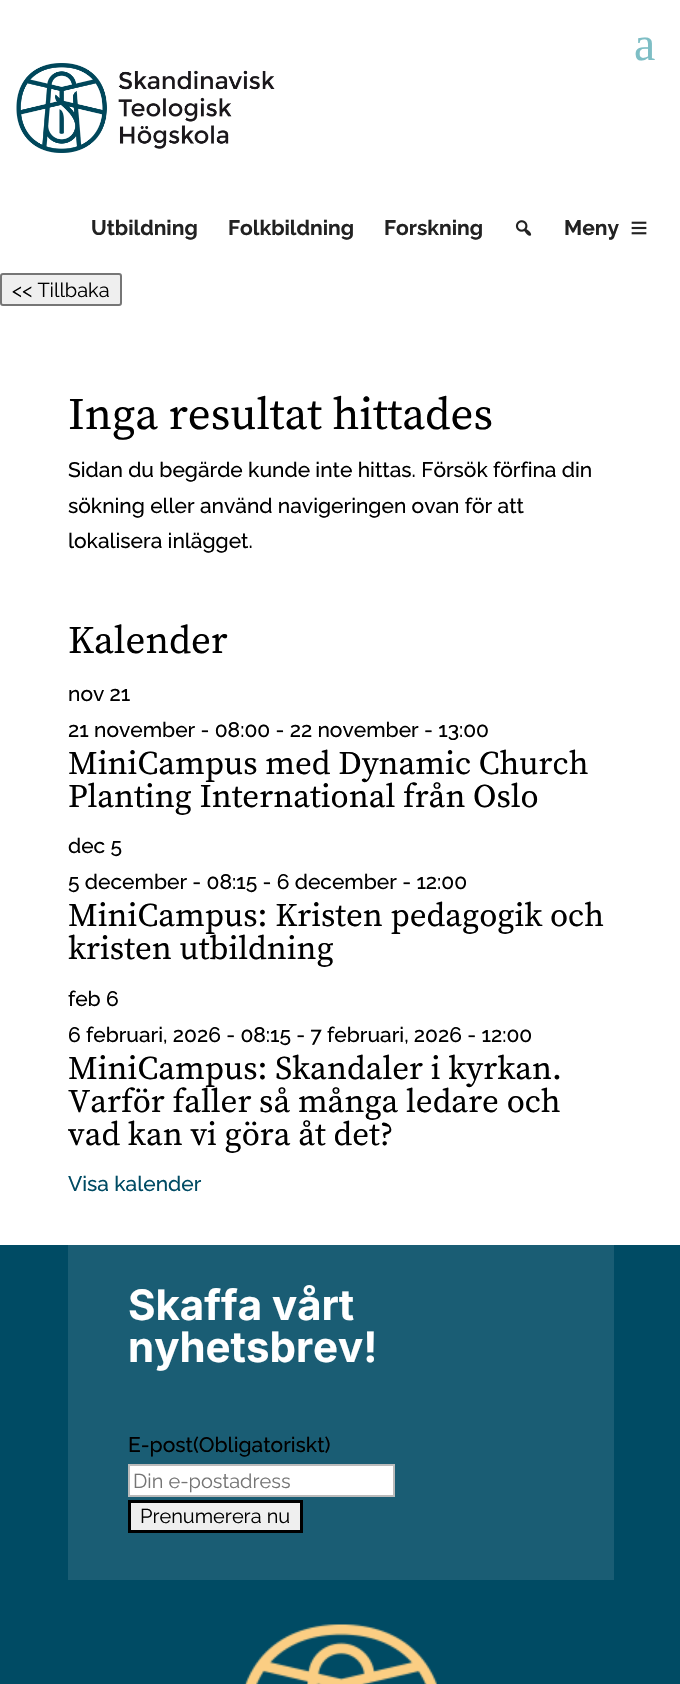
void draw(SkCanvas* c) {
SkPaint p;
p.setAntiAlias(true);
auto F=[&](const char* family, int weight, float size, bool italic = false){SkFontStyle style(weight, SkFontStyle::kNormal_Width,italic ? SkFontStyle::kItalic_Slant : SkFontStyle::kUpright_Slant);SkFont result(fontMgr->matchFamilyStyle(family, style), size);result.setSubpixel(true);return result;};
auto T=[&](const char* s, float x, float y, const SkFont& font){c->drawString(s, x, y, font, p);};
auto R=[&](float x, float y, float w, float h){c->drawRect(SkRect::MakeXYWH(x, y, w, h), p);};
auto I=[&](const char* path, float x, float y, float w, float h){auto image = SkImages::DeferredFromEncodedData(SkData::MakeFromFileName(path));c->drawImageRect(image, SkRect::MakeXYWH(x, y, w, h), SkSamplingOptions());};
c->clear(0xffffffff);
auto f1 = F("Liberation Serif",400,48);
p.setColor(0xff7ebec5);
T("a",634,60,f1);
I("1.png",16,63,259,90);
auto f2 = F("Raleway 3",100,21);
p.setColor(0xff222222);
T("Utbildning",91,235,f2);
T("Folkbildning",228,235,f2);
T("Forskning",384,235,f2);
I("2.png",515,220,17,16);
T("Meny",564,235,f2);
I("3.png",631,221,16,14);
p.setColor(0xffefefef);
c->drawRoundRect(SkRect::MakeXYWH(1,274,120,31),2,2,p);
p.setStroke(true);
p.setStrokeWidth(2);
p.setColor(0xff767676);
c->drawRoundRect(SkRect::MakeXYWH(1,274,120,31),2,2,p);
auto f3 = F("Raleway",100,20);
p.setStroke(false);
p.setColor(0xff000000);
T("<< Tillbaka",12,297,f3);
auto f4 = F("Source Serif Pro",400,45);
T("Inga resultat hittades",68,429,f4);
auto f5 = F("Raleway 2",100,21);
T("Sidan du begärde kunde inte hittas. Försök förfina din",68,477,f5);
T("sökning eller använd navigeringen ovan för att",68,513,f5);
T("lokalisera inlägget.",68,548,f5);
auto f6 = F("Source Serif Pro",400,39);
T("Kalender",68,653,f6);
T("nov 21",68,701,f5);
T("21 november - 08:00 - 22 november - 13:00",68,737,f5);
auto f7 = F("Source Serif Pro",400,33);
T("MiniCampus med Dynamic Church",68,774,f7);
T("Planting International från Oslo",68,807,f7);
T("dec 5",68,853,f5);
T("5 december - 08:15 - 6 december - 12:00",68,889,f5);
T("MiniCampus: Kristen pedagogik och",68,926,f7);
T("kristen utbildning",68,959,f7);
T("feb 6",68,1006,f5);
T("6 februari, 2026 - 08:15 - 7 februari, 2026 - 12:00",68,1042,f5);
T("MiniCampus: Skandaler i kyrkan.",68,1079,f7);
T("Varför faller så många ledare och",68,1112,f7);
T("vad kan vi göra åt det?",68,1145,f7);
p.setColor(0xff004b64);
T("Visa kalender",68,1191,f5);
R(0,1245,680,439);
p.setColor(0xff1a5d74);
R(68,1245,546,335);
auto f8 = F("Inter",700,42);
p.setColor(0xffffffff);
T("Skaffa vårt",128,1320,f8);
T("nyhetsbrev!",128,1362,f8);
p.setColor(0xff000000);
T("E-post(Obligatoriskt)",128,1452,f5);
p.setColor(0xffffffff);
c->drawRect(SkRect::MakeXYWH(129,1465,265,31),p);
p.setStroke(true);
p.setColor(0xffbbbbbb);
c->drawRect(SkRect::MakeXYWH(129,1465,265,31),p);
p.setStroke(false);
p.setColor(0xff757575);
T("Din e-postadress",133,1488,f3);
p.setColor(0xffefefef);
c->drawRect(SkRect::MakeXYWH(129.5,1501.5,172,30),p);
p.setStroke(true);
p.setStrokeWidth(3);
p.setColor(0xff000000);
c->drawRect(SkRect::MakeXYWH(129.5,1501.5,172,30),p);
p.setStroke(false);
T("Prenumerera nu",140,1523,f3);
I("4.png",244,1624,193,60);
}
